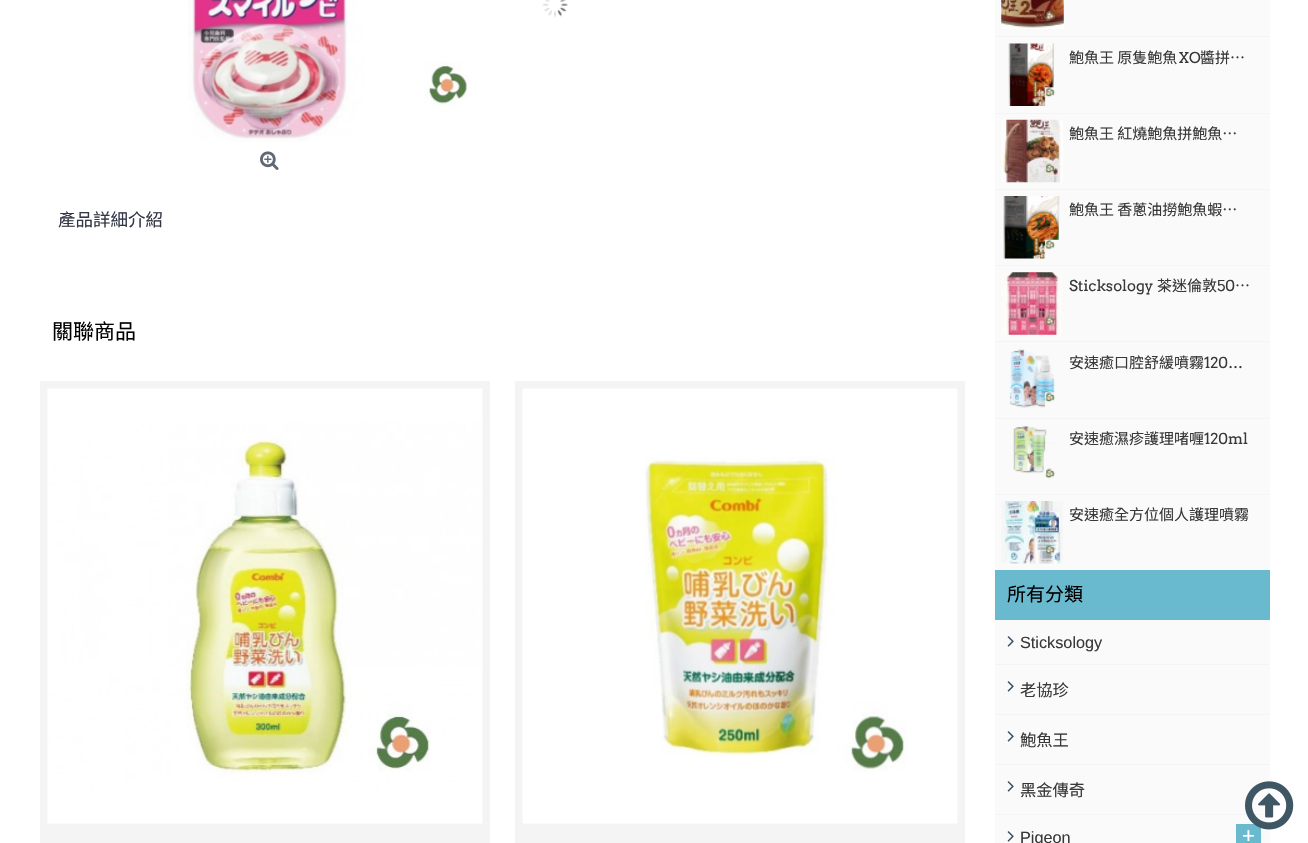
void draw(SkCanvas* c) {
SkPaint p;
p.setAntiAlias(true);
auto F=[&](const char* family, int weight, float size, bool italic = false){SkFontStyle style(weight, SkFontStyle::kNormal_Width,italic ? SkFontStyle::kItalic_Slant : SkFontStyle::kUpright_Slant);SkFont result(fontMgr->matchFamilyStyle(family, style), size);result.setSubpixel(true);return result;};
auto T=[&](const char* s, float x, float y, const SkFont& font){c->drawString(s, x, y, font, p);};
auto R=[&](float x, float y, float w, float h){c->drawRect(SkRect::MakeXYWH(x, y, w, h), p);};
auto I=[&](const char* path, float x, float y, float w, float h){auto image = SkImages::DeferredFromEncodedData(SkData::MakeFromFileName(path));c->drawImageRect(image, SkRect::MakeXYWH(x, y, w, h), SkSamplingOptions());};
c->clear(0xffffffff);
I("1.png",188,0,282,142);
I("2.png",260,151,19,19);
I("3.png",542,0,26,18);
auto f1 = F("Noto Sans CJK HK",400,17.5);
p.setColor(0xff333745);
T("產品詳細介紹",58,226,f1);
auto f2 = F("Noto Sans CJK HK",400,21);
p.setColor(0xff000000);
T("關聯商品",52,339,f2);
p.setColor(0xfff4f4f4);
R(40,381,450,462);
I("4.png",47,388,436,436);
R(515,381,450,462);
I("5.png",522,388,436,436);
p.setColor(0xfffafafa);
R(995,0,275,570);
p.setColor(0xfff4f4f4);
R(995,36,275,1);
I("6.png",1001,0,63,29);
R(995,113,275,1);
I("7.png",1008,43,48,63);
auto f3 = F("Noto Sans CJK HK",400,15);
p.setColor(0xff383838);
T("鮑魚王 原隻鮑魚",1069,63,f3);
auto f4 = F("Arvo",400,15);
T("XO",1178,63,f4);
T("醬拼…",1200,63,f3);
p.setColor(0xfff4f4f4);
R(995,189,275,1);
I("8.png",1001,119,62,64);
p.setColor(0xff383838);
T("鮑魚王 紅燒鮑魚拼鮑魚…",1069,139,f3);
p.setColor(0xfff4f4f4);
R(995,265,275,1);
I("9.png",1003,196,57,63);
p.setColor(0xff383838);
T("鮑魚王 香蔥油撈鮑魚蝦…",1069,215,f3);
p.setColor(0xfff4f4f4);
R(995,341,275,1);
I("10.png",1001,272,61,63);
p.setColor(0xff383838);
T("Sticksology",1069,291,f4);
T("茶迷倫敦",1157,291,f3);
T("50",1217,291,f4);
T("…",1235,291,f3);
p.setColor(0xfff4f4f4);
R(995,418,275,1);
I("11.png",1009,349,47,59);
p.setColor(0xff383838);
T("安速癒口腔舒緩噴霧",1069,368,f3);
T("120…",1204,368,f4);
p.setColor(0xfff4f4f4);
R(995,494,275,1);
I("12.png",1013,426,43,53);
p.setColor(0xff383838);
T("安速癒濕疹護理啫喱",1069,444,f3);
T("120ml",1204,444,f4);
I("13.png",1001,501,62,63);
T("安速癒全方位個人護理噴霧",1069,520,f3);
p.setColor(0xfffafafa);
R(995,620,275,223);
p.setColor(0xff69b9cf);
R(995,570,275,50);
auto f5 = F("Noto Sans CJK HK",400,19);
p.setColor(0xff000000);
T("所有分類",1007,601,f5);
p.setColor(0xfff4f4f4);
R(995,664,275,1);
I("14.png",1007,636,7,11);
auto f6 = F("Liberation Sans",400,16.25);
p.setColor(0xff383838);
T("Sticksology",1020,648,f6);
p.setColor(0xfff4f4f4);
R(995,714,275,1);
I("14.png",1007,681,7,11);
auto f7 = F("Noto Sans CJK HK",400,16.25);
p.setColor(0xff383838);
T("老協珍",1020,696,f7);
p.setColor(0xfff4f4f4);
R(995,764,275,1);
I("14.png",1007,731,7,11);
p.setColor(0xff383838);
T("鮑魚王",1020,746,f7);
p.setColor(0xfff4f4f4);
R(995,814,275,1);
I("14.png",1007,781,7,11);
p.setColor(0xff383838);
T("黑金傳奇",1020,796,f7);
I("14.png",1007,831,7,11);
T("Pigeon",1020,843,f6);
p.setColor(0xff69b9cf);
R(1236,824,25,19);
auto f8 = F("Liberation Sans",400,22);
p.setColor(0xffffffff);
T("+",1242,843,f8);
I("15.png",1245,781,49,49);
}
